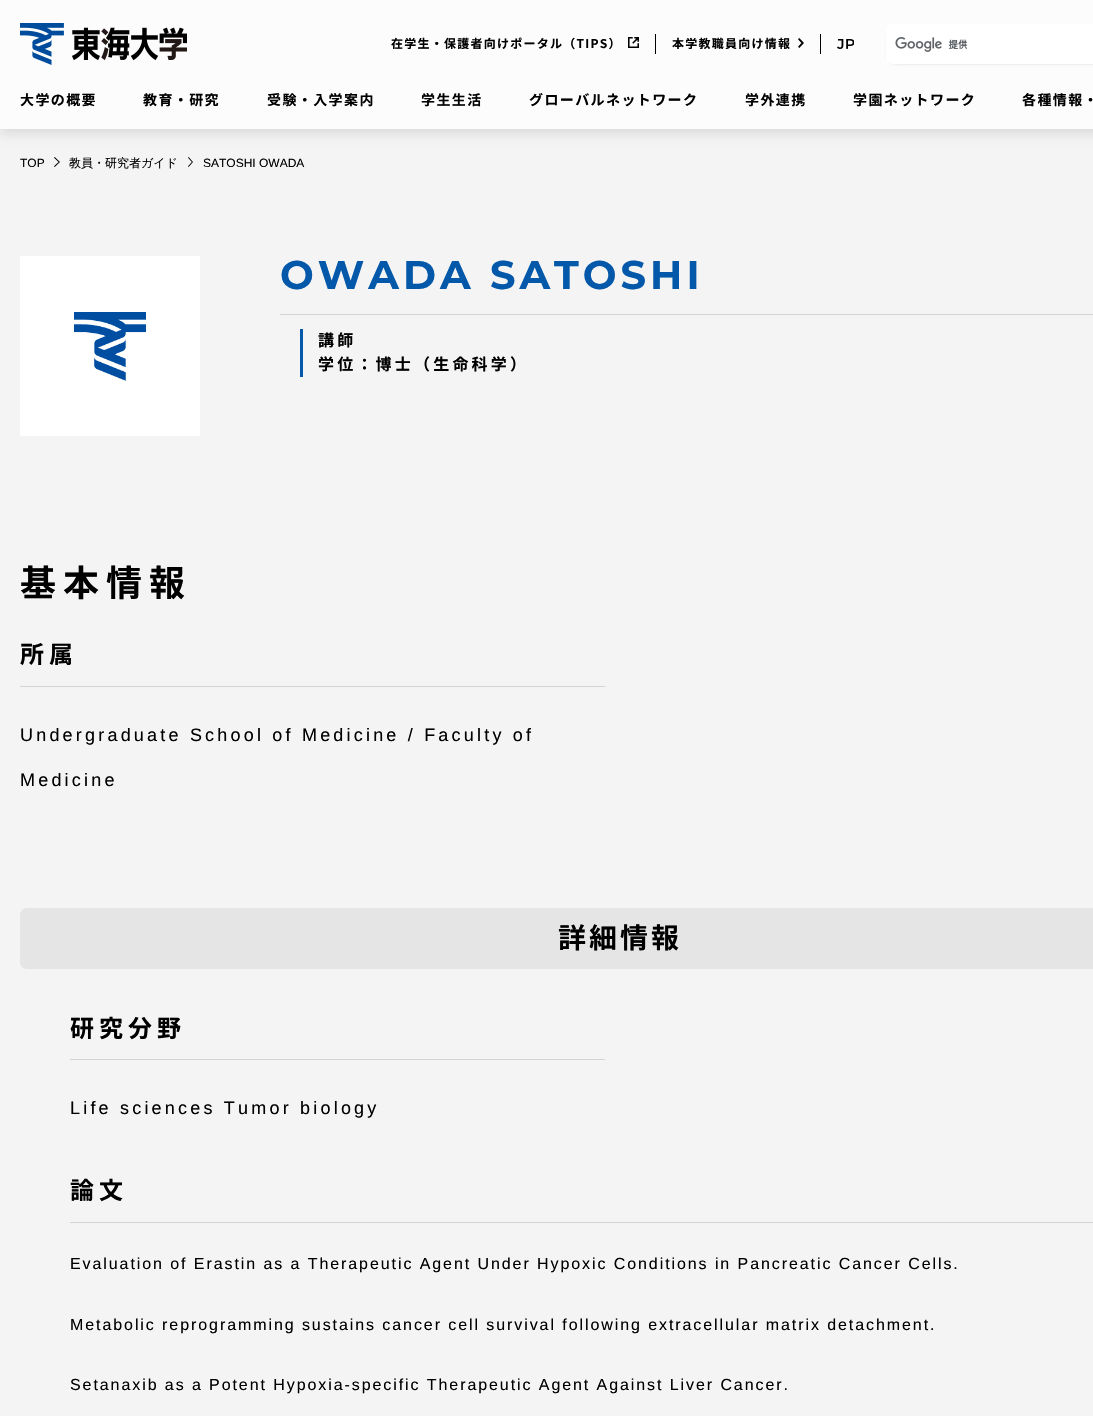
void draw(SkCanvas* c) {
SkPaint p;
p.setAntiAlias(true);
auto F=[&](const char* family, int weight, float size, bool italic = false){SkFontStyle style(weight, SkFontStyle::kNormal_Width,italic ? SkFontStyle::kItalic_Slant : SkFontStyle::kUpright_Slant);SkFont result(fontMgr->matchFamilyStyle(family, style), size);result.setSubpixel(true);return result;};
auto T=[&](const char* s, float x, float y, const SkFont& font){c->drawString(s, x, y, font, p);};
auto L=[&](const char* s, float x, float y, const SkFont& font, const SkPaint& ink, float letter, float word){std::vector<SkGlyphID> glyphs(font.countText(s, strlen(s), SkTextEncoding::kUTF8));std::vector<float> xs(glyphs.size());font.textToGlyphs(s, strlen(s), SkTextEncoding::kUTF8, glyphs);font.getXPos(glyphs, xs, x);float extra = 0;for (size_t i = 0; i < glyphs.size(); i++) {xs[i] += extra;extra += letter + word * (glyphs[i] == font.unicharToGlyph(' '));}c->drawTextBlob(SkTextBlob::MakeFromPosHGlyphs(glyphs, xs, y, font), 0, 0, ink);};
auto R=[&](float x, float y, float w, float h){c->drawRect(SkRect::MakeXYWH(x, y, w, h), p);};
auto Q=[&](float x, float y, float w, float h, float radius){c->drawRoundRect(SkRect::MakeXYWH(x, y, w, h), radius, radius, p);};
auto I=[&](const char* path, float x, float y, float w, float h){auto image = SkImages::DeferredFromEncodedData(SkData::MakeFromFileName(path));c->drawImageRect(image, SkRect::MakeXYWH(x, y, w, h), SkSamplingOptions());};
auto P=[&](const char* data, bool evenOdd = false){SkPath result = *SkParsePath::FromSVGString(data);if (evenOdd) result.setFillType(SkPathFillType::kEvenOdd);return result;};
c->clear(0xfff4f4f4);
p.setColor(0x1a000000);
p.setMaskFilter(SkMaskFilter::MakeBlur(kNormal_SkBlurStyle, 5));
c->drawRect(SkRect::MakeXYWH(0,5,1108,129),p);
p.setMaskFilter(nullptr);
p.setColor(0xfffcfcfc);
R(0,0,1093,129);
I("1.png",20,23,167,42);
p.setColor(0xff000000);
R(655,34,1,20);
auto f1 = F("Noto Sans JP",700,12);
L("在学生・保護者向けポータル（TIPS）",391,48,f1,p,1.25,0);
I("2.png",628,37,11,11);
R(820,34,1,20);
L("本学教職員向け情報",672,48,f1,p,1.25,0);
I("3.png",798,38,6,10);
I("4.png",837,39,17,10);
p.setColor(0x29959595);
p.setMaskFilter(SkMaskFilter::MakeBlur(kNormal_SkBlurStyle, 1));
c->drawRoundRect(SkRect::MakeXYWH(886,25,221,40),11,11,p);
p.setMaskFilter(nullptr);
p.setColor(0xffffffff);
c->drawPath(P("M893 24h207v40h-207c-4 0-7-3-7-7v-26c0-4 3-7 7-7z"),p);
I("5.png",895,37,73,15);
auto f2 = F("Noto Sans JP",700,14);
p.setColor(0xff000000);
L("大学の概要",20,105,f2,p,1.4,0);
L("教育・研究",143,105,f2,p,1.4,0);
L("受験・入学案内",267,105,f2,p,1.4,0);
L("学生生活",421,105,f2,p,1.4,0);
L("グローバルネットワーク",529,105,f2,p,1.4,0);
L("学外連携",745,105,f2,p,1.4,0);
L("学園ネットワーク",853,105,f2,p,1.4,0);
L("各種情報・",1022,105,f2,p,1.4,0);
auto f3 = F("Liberation Sans",400,12);
T("TOP",20,167,f3);
I("6.png",54,157,6,10);
auto f4 = F("WenQuanYi Zen Hei",500,12);
T("教員・研究者ガイド",69,167,f4);
I("7.png",188,157,5,10);
T("SATOSHI OWADA",203,167,f3);
I("8.png",20,256,180,180);
auto f5 = F("Montserrat",700,40);
p.setColor(0xff0358a9);
L("OWADA SATOSHI",280,289,f5,p,4,0);
p.setColor(0xffd4d4d4);
R(280,314,813,1);
p.setColor(0xff0358a9);
R(300,329,3,48);
auto f6 = F("Noto Sans JP",700,16);
p.setColor(0xff000000);
L("講師",318,346,f6,p,3.2,0);
L("学位：博士（生命科学）",318,370,f6,p,3.2,0);
auto f7 = F("Noto Sans JP",700,36);
L("基本情報",20,596,f7,p,7,0);
p.setColor(0xffd4d4d4);
R(20,686,585,1);
auto f8 = F("Noto Sans JP",700,24);
p.setColor(0xff000000);
L("所属",20,663,f8,p,5,0);
auto f9 = F("Liberation Sans",400,18);
L("Undergraduate School of Medicine / Faculty of",20,741,f9,p,3.2,0);
L("Medicine",20,786,f9,p,3.2,0);
p.setColor(0xffe5e5e5);
Q(20,908,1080,61,7);
auto f10 = F("Noto Sans JP",700,28);
p.setColor(0xff000000);
L("詳細情報",558,948,f10,p,3,0);
p.setColor(0xffd4d4d4);
R(70,1059,535,1);
p.setColor(0xff000000);
L("研究分野",70,1037,f8,p,5,0);
L("Life sciences Tumor biology",70,1114,f9,p,3.2,0);
p.setColor(0xffd4d4d4);
R(70,1222,1023,1);
p.setColor(0xff000000);
L("論文",70,1199,f8,p,5,0);
auto f11 = F("Liberation Sans",400,16);
L("Evaluation of Erastin as a Therapeutic Agent Under Hypoxic Conditions in Pancreatic Cancer Cells.",70,1269,f11,p,1.92,0);
L("Metabolic reprogramming sustains cancer cell survival following extracellular matrix detachment.",70,1330,f11,p,1.92,0);
L("Setanaxib as a Potent Hypoxia-specific Therapeutic Agent Against Liver Cancer.",70,1390,f11,p,1.92,0);
}
